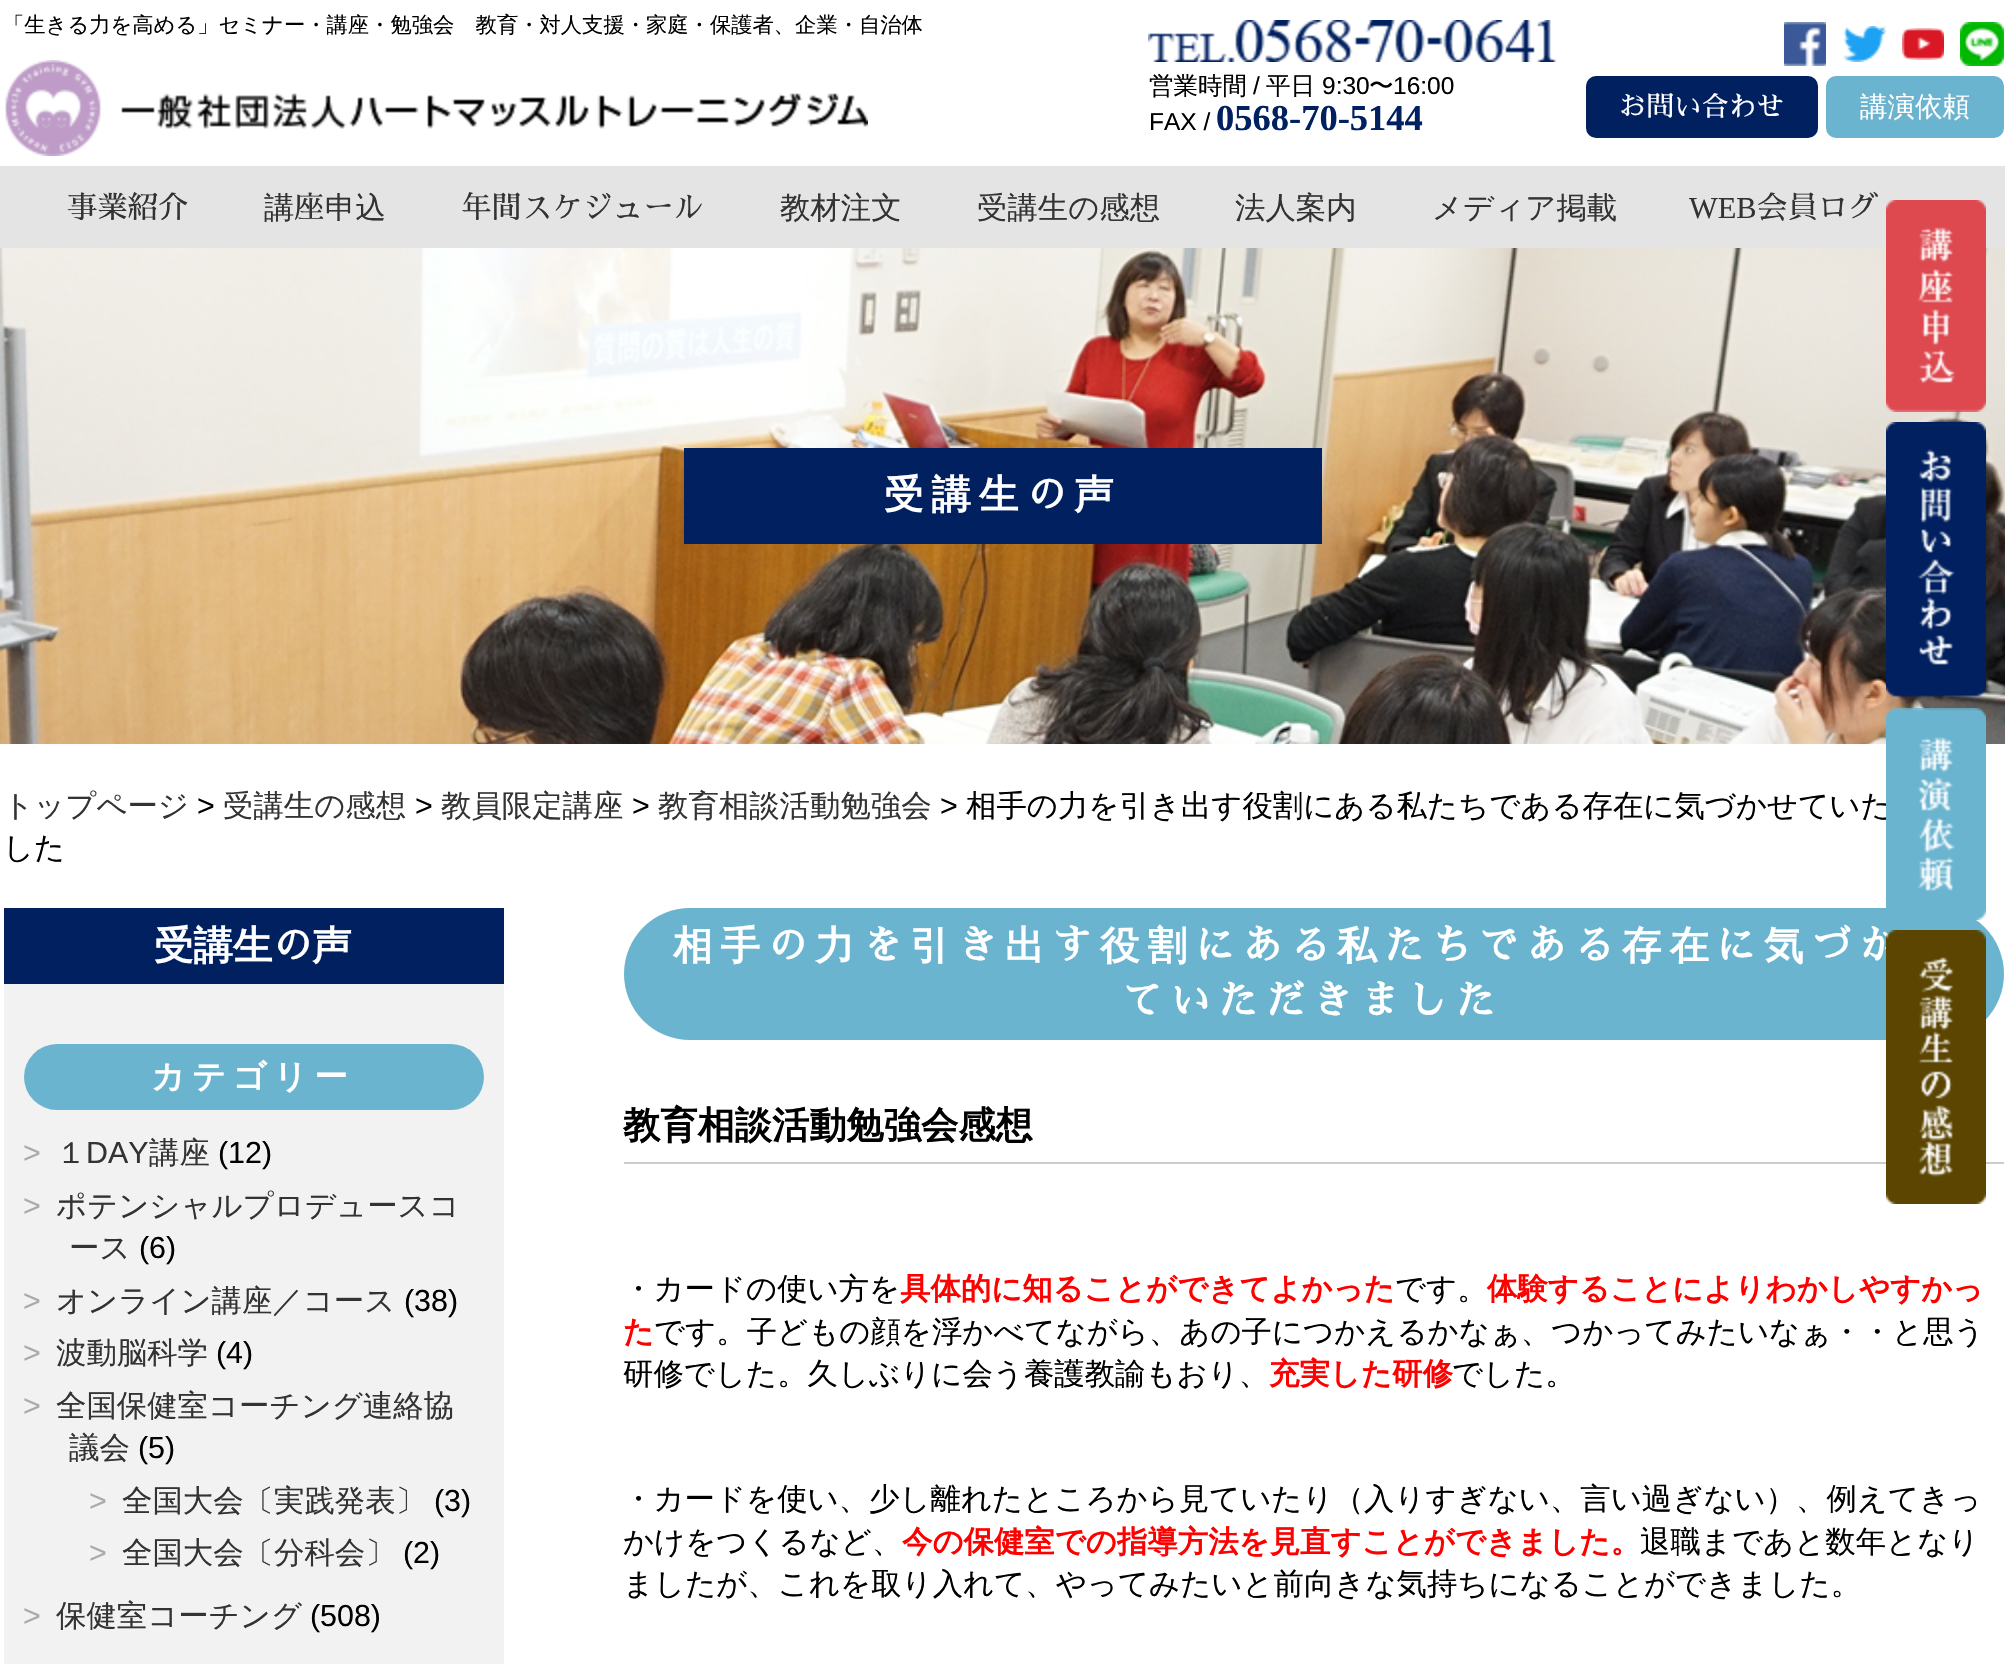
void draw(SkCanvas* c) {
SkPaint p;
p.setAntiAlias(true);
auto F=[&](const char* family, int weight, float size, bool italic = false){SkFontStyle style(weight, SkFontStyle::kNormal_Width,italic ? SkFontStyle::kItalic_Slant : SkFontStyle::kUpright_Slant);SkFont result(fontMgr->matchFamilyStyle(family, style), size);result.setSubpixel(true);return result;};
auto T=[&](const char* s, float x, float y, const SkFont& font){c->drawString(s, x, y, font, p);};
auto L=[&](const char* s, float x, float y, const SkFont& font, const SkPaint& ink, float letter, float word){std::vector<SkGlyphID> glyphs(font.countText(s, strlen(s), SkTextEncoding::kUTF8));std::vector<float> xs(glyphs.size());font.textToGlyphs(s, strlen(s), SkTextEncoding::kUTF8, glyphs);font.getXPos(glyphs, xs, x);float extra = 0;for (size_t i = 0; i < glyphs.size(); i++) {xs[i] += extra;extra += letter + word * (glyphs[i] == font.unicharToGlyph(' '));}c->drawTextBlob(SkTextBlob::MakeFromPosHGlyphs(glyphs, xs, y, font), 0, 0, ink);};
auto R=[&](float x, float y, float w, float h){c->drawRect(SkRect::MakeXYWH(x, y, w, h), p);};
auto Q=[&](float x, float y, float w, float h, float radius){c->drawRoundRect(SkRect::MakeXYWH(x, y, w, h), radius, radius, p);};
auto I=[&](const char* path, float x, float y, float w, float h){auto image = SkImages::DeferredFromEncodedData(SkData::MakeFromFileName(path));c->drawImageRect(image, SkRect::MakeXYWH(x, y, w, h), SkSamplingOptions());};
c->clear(0xffffffff);
auto f1 = F("WenQuanYi Zen Hei",500,21.3);
p.setColor(0xff000000);
T("「生きる力を高める」セミナー・講座・勉強会　教育・対人支援・家庭・保護者、企業・自治体",3,32,f1);
I("1.png",4,60,864,96);
I("2.png",1148,20,408,42);
auto f2 = F("WenQuanYi Zen Hei",500,24.5);
T("営業時間",1149,94,f2);
auto f3 = F("Liberation Sans",400,24.5);
T("/",1253,94,f3);
T("平日",1266,94,f2);
T("9:30",1322,94,f3);
T("〜",1369,94,f2);
T("16:00",1393,94,f3);
T("FAX /",1149,130,f3);
auto f4 = F("Liberation Serif",700,36.5);
p.setColor(0xff002060);
T("0568-70-5144",1216,130,f4);
I("3.png",1784,22,42,44);
I("4.png",1843,26,43,36);
I("5.png",1902,28,42,32);
I("6.png",1960,22,44,44);
Q(1586,76,232,62,10);
auto f5 = F("Sawarabi Mincho",400,27.5);
p.setColor(0xffffffff);
T("お問い合わせ",1619,116,f5);
p.setColor(0xff6ab4d0);
Q(1826,76,178,62,10);
auto f6 = F("WenQuanYi Zen Hei",500,27.5);
p.setColor(0xffffffff);
T("講演依頼",1860,116,f6);
p.setColor(0xffe4e4e4);
R(0,166,2005,82);
auto f7 = F("Sawarabi Mincho",400,30.4);
p.setColor(0xff333333);
T("事業紹介",67,218,f7);
auto f8 = F("WenQuanYi Zen Hei",500,30.4);
T("講",264,218,f8);
T("座",294,218,f7);
T("申込",325,218,f8);
T("年間スケジュール",461,218,f7);
T("教材注文",780,218,f8);
T("受講生の感想",977,218,f8);
T("法人案内",1235,218,f8);
T("メディア掲載",1432,218,f8);
auto f9 = F("Liberation Serif",400,30.4);
T("WEB",1689,218,f9);
T("会員ログ",1757,218,f7);
I("7.png",0,248,2005,496);
p.setColor(0xff002060);
R(684,448,638,96);
auto f10 = F("WenQuanYi Zen Hei",700,39.5);
p.setColor(0xffffffff);
L("受講生",884,508,f10,p,8,0);
auto f11 = F("Sawarabi Mincho",700,39.5);
L("の",1027,508,f11,p,8,0);
L("声",1074,508,f10,p,8,0);
I("8.png",1886,200,100,212);
I("9.png",1886,422,100,276);
p.setColor(0xff000000);
T("相手の力を引き出す役割にある私たちである存在に気づかせていた",966,816,f8);
p.setColor(0xff6ab4d0);
Q(624,908,1380,132,66);
I("10.png",1886,708,100,212);
p.setColor(0xffffffff);
L("づか",1811,959,f11,p,8,0);
p.setColor(0xffcccccc);
R(624,1162,1380,2);
I("11.png",1886,930,100,274);
p.setColor(0xff333333);
T("トップページ",3,816,f8);
auto f12 = F("Liberation Sans",400,30.4);
p.setColor(0xff000000);
T(">",197,816,f12);
p.setColor(0xff333333);
T("受講生の感想",223,816,f8);
p.setColor(0xff000000);
T(">",415,816,f12);
p.setColor(0xff333333);
T("教員限定講座",441,816,f8);
p.setColor(0xff000000);
T(">",632,816,f12);
p.setColor(0xff333333);
T("教育相談活動勉強会",658,816,f8);
p.setColor(0xff000000);
T(">",940,816,f12);
T("した",3,858,f8);
p.setColor(0xfff2f2f2);
R(4,984,500,680);
p.setColor(0xff002060);
R(4,908,500,76);
p.setColor(0xffffffff);
T("受講生",154,959,f10);
T("の",273,959,f11);
T("声",312,959,f10);
p.setColor(0xff6ab4d0);
Q(24,1044,460,66,33);
auto f13 = F("WenQuanYi Zen Hei",700,33.5);
p.setColor(0xffffffff);
L("カテゴリー",151,1088,f13,p,6.5,0);
p.setColor(0xffaaaaaa);
T(">",23,1163,f12);
p.setColor(0xff333333);
T("１",56,1163,f8);
T("DAY",86,1163,f12);
T("講座",149,1163,f8);
p.setColor(0xff000000);
T("(12)",218,1163,f12);
p.setColor(0xffaaaaaa);
T(">",23,1216,f12);
p.setColor(0xff333333);
T("ポテンシャルプロデュースコ",56,1216,f8);
T("ース",69,1258,f8);
p.setColor(0xff000000);
T("(6)",139,1258,f12);
p.setColor(0xffaaaaaa);
T(">",23,1311,f12);
p.setColor(0xff333333);
T("オンライン講座／コース",56,1311,f8);
p.setColor(0xff000000);
T("(38)",404,1311,f12);
p.setColor(0xffaaaaaa);
T(">",23,1363,f12);
p.setColor(0xff333333);
T("波動脳科学",56,1363,f8);
p.setColor(0xff000000);
T("(4)",216,1363,f12);
p.setColor(0xffaaaaaa);
T(">",23,1416,f12);
p.setColor(0xff333333);
T("全国保健室コーチング連絡協",56,1416,f8);
T("議会",69,1458,f8);
p.setColor(0xff000000);
T("(5)",138,1458,f12);
p.setColor(0xffaaaaaa);
T(">",89,1511,f12);
p.setColor(0xff333333);
T("全国大会〔実践発表〕",122,1511,f8);
p.setColor(0xff000000);
T("(3)",434,1511,f12);
p.setColor(0xffaaaaaa);
T(">",89,1563,f12);
p.setColor(0xff333333);
T("全国大会〔分科会〕",122,1563,f8);
p.setColor(0xff000000);
T("(2)",403,1563,f12);
p.setColor(0xffaaaaaa);
T(">",23,1626,f12);
p.setColor(0xff333333);
T("保健室コーチング",56,1626,f8);
p.setColor(0xff000000);
T("(508)",310,1626,f12);
p.setColor(0xffffffff);
L("相手",673,959,f10,p,8,0);
L("の",768,959,f11,p,8,0);
L("力",815,959,f10,p,8,0);
L("を",863,959,f11,p,8,0);
L("引",910,959,f10,p,8,0);
L("き",958,959,f11,p,8,0);
L("出",1005,959,f10,p,8,0);
L("す",1052,959,f11,p,8,0);
L("役割",1100,959,f10,p,8,0);
L("にある",1195,959,f11,p,8,0);
L("私",1337,959,f10,p,8,0);
L("たちである",1384,959,f11,p,8,0);
L("存在",1622,959,f10,p,8,0);
L("に",1716,959,f11,p,8,0);
L("気",1764,959,f10,p,8,0);
L("ていただきました",1123,1014,f11,p,8,0);
auto f14 = F("WenQuanYi Zen Hei",700,37.25);
p.setColor(0xff000000);
T("教育相談活動勉強会感想",623,1138,f14);
T("・カードの使い方を",623,1299,f8);
auto f15 = F("WenQuanYi Zen Hei",700,30.4);
p.setColor(0xffff0000);
T("具体的に知ることができてよかった",900,1299,f15);
p.setColor(0xff000000);
T("です。",1395,1299,f8);
p.setColor(0xffff0000);
T("体験することによりわかしやすかっ",1487,1299,f15);
T("た",623,1342,f15);
p.setColor(0xff000000);
T("です。子どもの顔を浮かべてながら、あの子につかえるかなぁ、つかってみたいなぁ・・と思う",654,1342,f8);
T("研修でした。久しぶりに会う養護教諭もおり、",623,1384,f8);
p.setColor(0xffff0000);
T("充実した研修",1269,1384,f15);
p.setColor(0xff000000);
T("でした。",1452,1384,f8);
T("・カードを使い、少し離れたところから見ていたり（入りすぎない、言い過ぎない）、例えてきっ",623,1509,f8);
T("かけをつくるなど、",623,1552,f8);
p.setColor(0xffff0000);
T("今の保健室での指導方法を見直すことができました。",902,1552,f15);
p.setColor(0xff000000);
T("退職まであと数年となり",1640,1552,f8);
T("ましたが、これを取り入れて、やってみたいと前向きな気持ちになることができました。",623,1594,f8);
}
